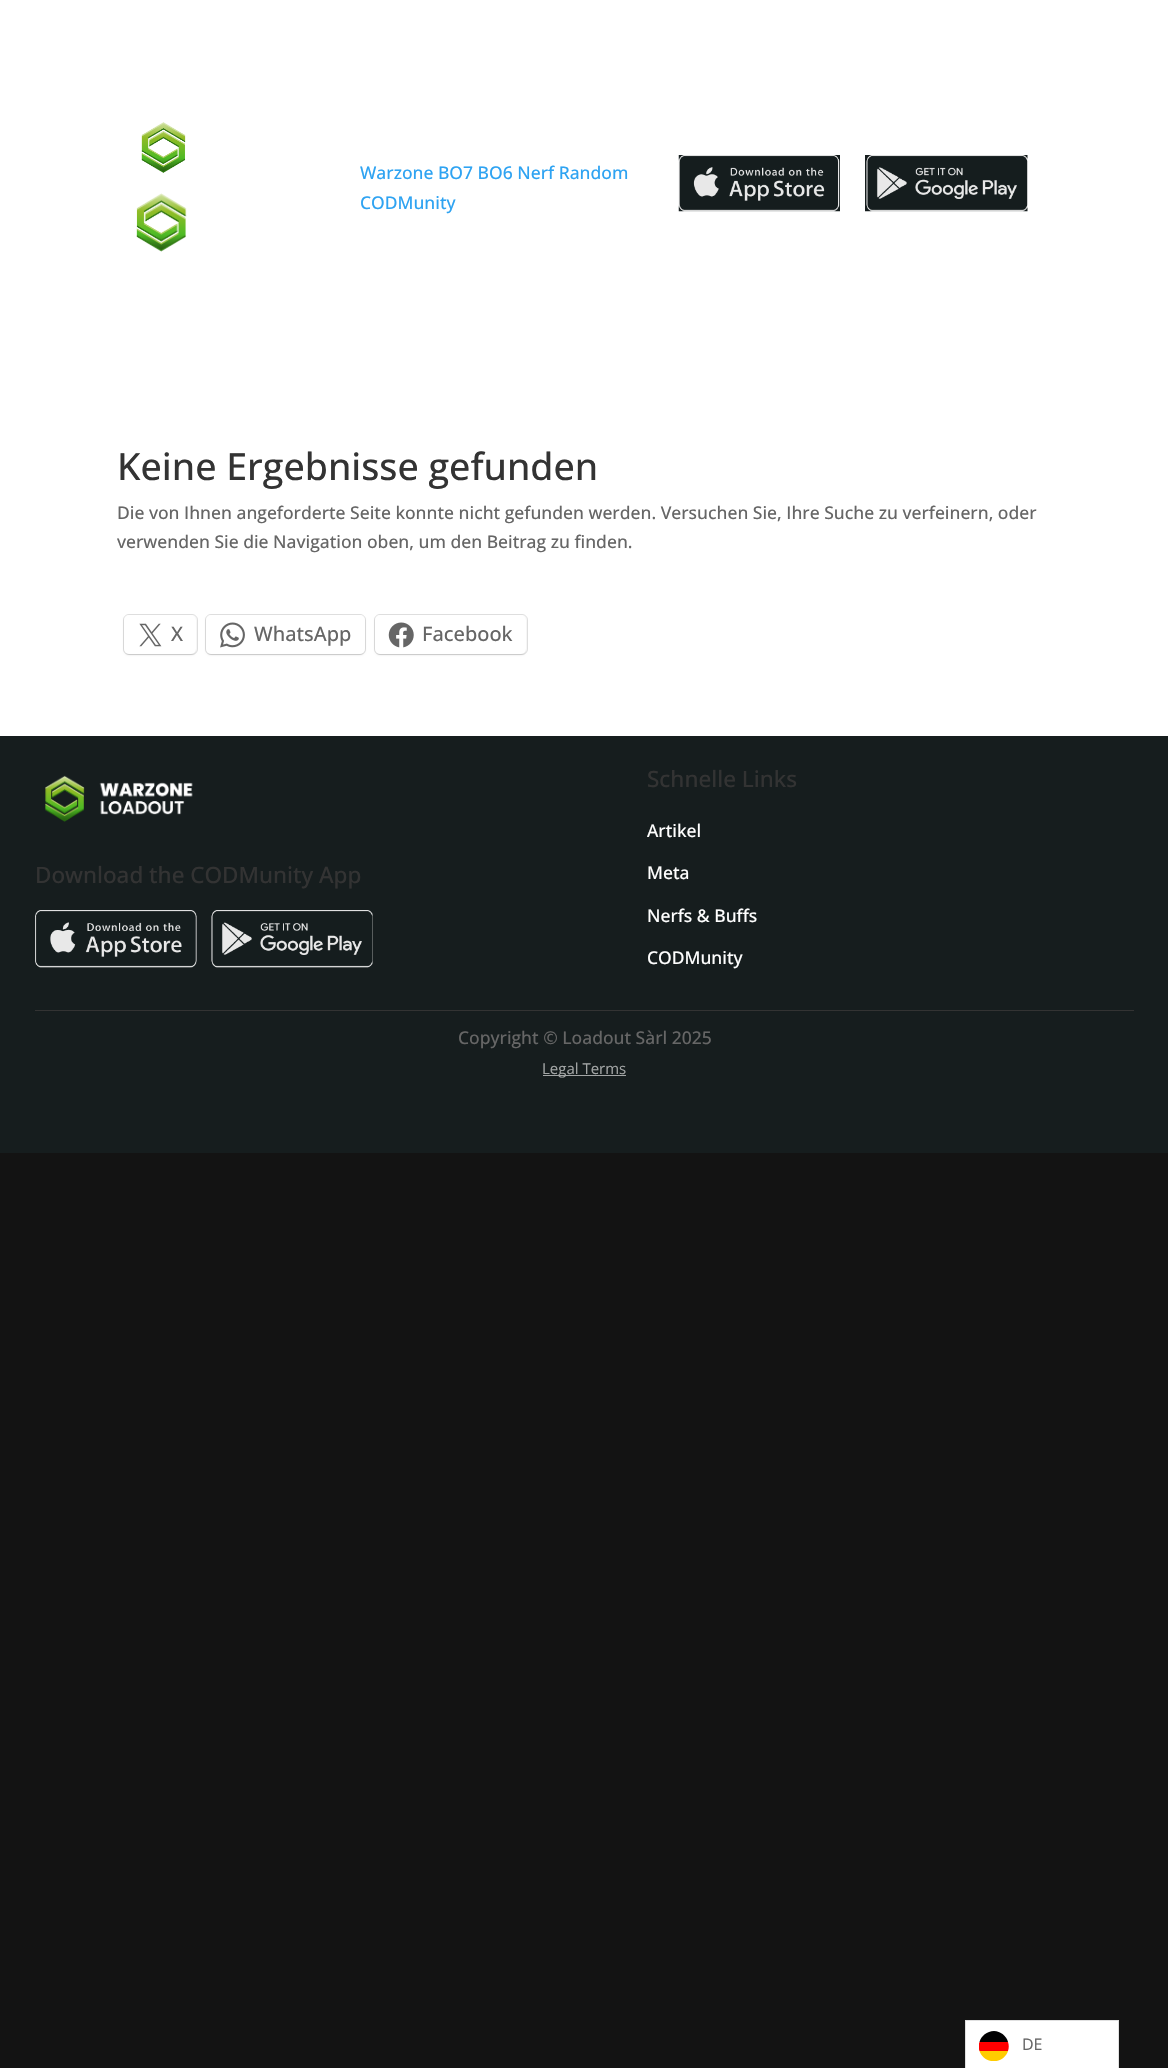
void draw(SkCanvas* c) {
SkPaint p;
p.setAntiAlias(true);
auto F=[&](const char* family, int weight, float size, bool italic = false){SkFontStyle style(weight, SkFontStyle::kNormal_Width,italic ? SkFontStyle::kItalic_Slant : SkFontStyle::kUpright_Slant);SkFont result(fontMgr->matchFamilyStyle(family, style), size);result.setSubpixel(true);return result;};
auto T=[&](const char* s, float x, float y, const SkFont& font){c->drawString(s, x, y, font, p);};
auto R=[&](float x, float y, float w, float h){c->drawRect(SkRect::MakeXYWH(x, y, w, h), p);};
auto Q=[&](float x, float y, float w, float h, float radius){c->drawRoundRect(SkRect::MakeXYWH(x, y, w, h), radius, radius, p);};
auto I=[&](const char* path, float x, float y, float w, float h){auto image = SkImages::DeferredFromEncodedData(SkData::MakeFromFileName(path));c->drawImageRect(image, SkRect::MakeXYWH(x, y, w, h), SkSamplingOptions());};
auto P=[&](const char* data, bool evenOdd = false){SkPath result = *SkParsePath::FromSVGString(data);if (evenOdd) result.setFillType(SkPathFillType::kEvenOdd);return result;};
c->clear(0xff131313);
p.setColor(0xffffffff);
R(0,0,1168,736);
I("1.png",141,122,45,51);
I("2.png",136,193,51,59);
auto f1 = F("Open Sans",500,17.5);
p.setColor(0xff2ea3f2);
T("Warzone BO7 BO6 Nerf Random",360,179,f1);
T("CODMunity",360,209,f1);
I("3.png",678,155,162,57);
I("4.png",865,155,163,57);
auto f2 = F("Open Sans",500,37.5);
p.setColor(0xff333333);
T("Keine Ergebnisse gefunden",117,480,f2);
p.setColor(0xff666666);
T("Die von Ihnen angeforderte Seite konnte nicht gefunden werden. Versuchen Sie, Ihre Suche zu verfeinern, oder",117,519,f1);
T("verwenden Sie die Navigation oben, um den Beitrag zu finden.",117,548,f1);
p.setStroke(true);
p.setStrokeWidth(1);
p.setColor(0xffe0e0e0);
c->drawRoundRect(SkRect::MakeXYWH(123.5,614.5,74,40),5.5,5.5,p);
p.setStroke(false);
p.setColor(0x1f000000);
p.setMaskFilter(SkMaskFilter::MakeBlur(kNormal_SkBlurStyle, 1));
c->drawRoundRect(SkRect::MakeXYWH(124,616,72,39),5,5,p);
p.setMaskFilter(nullptr);
p.setColor(0xffffffff);
Q(124,615,72,39,5);
I("5.png",139,623,23,24);
auto f3 = F("Open Sans",500,20);
p.setColor(0xff666666);
T("X",171,641,f3);
p.setStroke(true);
p.setColor(0xffe0e0e0);
c->drawRoundRect(SkRect::MakeXYWH(205.5,614.5,160,40),5.5,5.5,p);
p.setStroke(false);
p.setColor(0x1f000000);
p.setMaskFilter(SkMaskFilter::MakeBlur(kNormal_SkBlurStyle, 1));
c->drawRoundRect(SkRect::MakeXYWH(206,616,159,39),5,5,p);
p.setMaskFilter(nullptr);
p.setColor(0xffffffff);
Q(206,615,159,39,5);
I("6.png",220,622,25,26);
p.setColor(0xff666666);
T("WhatsApp",254,641,f3);
p.setStroke(true);
p.setColor(0xffe0e0e0);
c->drawRoundRect(SkRect::MakeXYWH(374.5,614.5,153,40),5.5,5.5,p);
p.setStroke(false);
p.setColor(0x1f000000);
p.setMaskFilter(SkMaskFilter::MakeBlur(kNormal_SkBlurStyle, 1));
c->drawRoundRect(SkRect::MakeXYWH(375,616,151,39),5,5,p);
p.setMaskFilter(nullptr);
p.setColor(0xffffffff);
Q(375,615,151,39,5);
I("7.png",388,622,26,26);
p.setColor(0xff666666);
T("Facebook",422,641,f3);
p.setColor(0xff161d1e);
R(0,736,1168,417);
I("8.png",45,775,148,47);
auto f4 = F("Open Sans",500,22.5);
p.setColor(0xff333333);
T("Download the CODMunity App",35,883,f4);
I("9.png",35,910,162,58);
I("10.png",211,910,162,58);
T("Schnelle Links",647,787,f4);
p.setColor(0xffffffff);
T("Artikel",647,837,f1);
T("Meta",647,879,f1);
T("Nerfs & Buffs",647,922,f1);
T("CODMunity",647,964,f1);
p.setColor(0xff333333);
R(35,1010,1099,1);
p.setColor(0xff666666);
T("Copyright © Loadout Sàrl 2025",458,1044,f1);
p.setColor(0xffa2a5a5);
R(543,1075,83,1);
auto f5 = F("Open Sans",400,15);
T("Legal Terms",542,1074,f5);
p.setColor(0xffffffff);
c->drawRect(SkRect::MakeXYWH(965.5,2020.5,153,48),p);
p.setStroke(true);
p.setColor(0xffe0e0e0);
c->drawRect(SkRect::MakeXYWH(965.5,2020.5,153,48),p);
p.setStroke(false);
p.setColor(0xffffcc00);
c->drawPath(P("M991 2061c-5.5-1-10-5-11.5-10h28.5c-1.5 5-6 9-11.5 10z"),p);
p.setColor(0xff000001);
c->drawPath(P("M994 2031c6.5 0 12.5 5 14 11h-28.5c1.5-6 7.5-11 14.5-11z"),p);
c->save();
c->clipRect(SkRect::MakeXYWH(979,2031,30,30));
p.setColor(0xffff0000);
c->drawPath(P("M979 2043.5l.5-1.5h28.5c1 3 1 6 0 9h-28.5c-1-2.5-.5-5-.5-7.5z"),p);
c->restore();
auto f6 = F("Open Sans",400,16);
p.setColor(0xff666666);
T("DE",1022,2050,f6);
}
